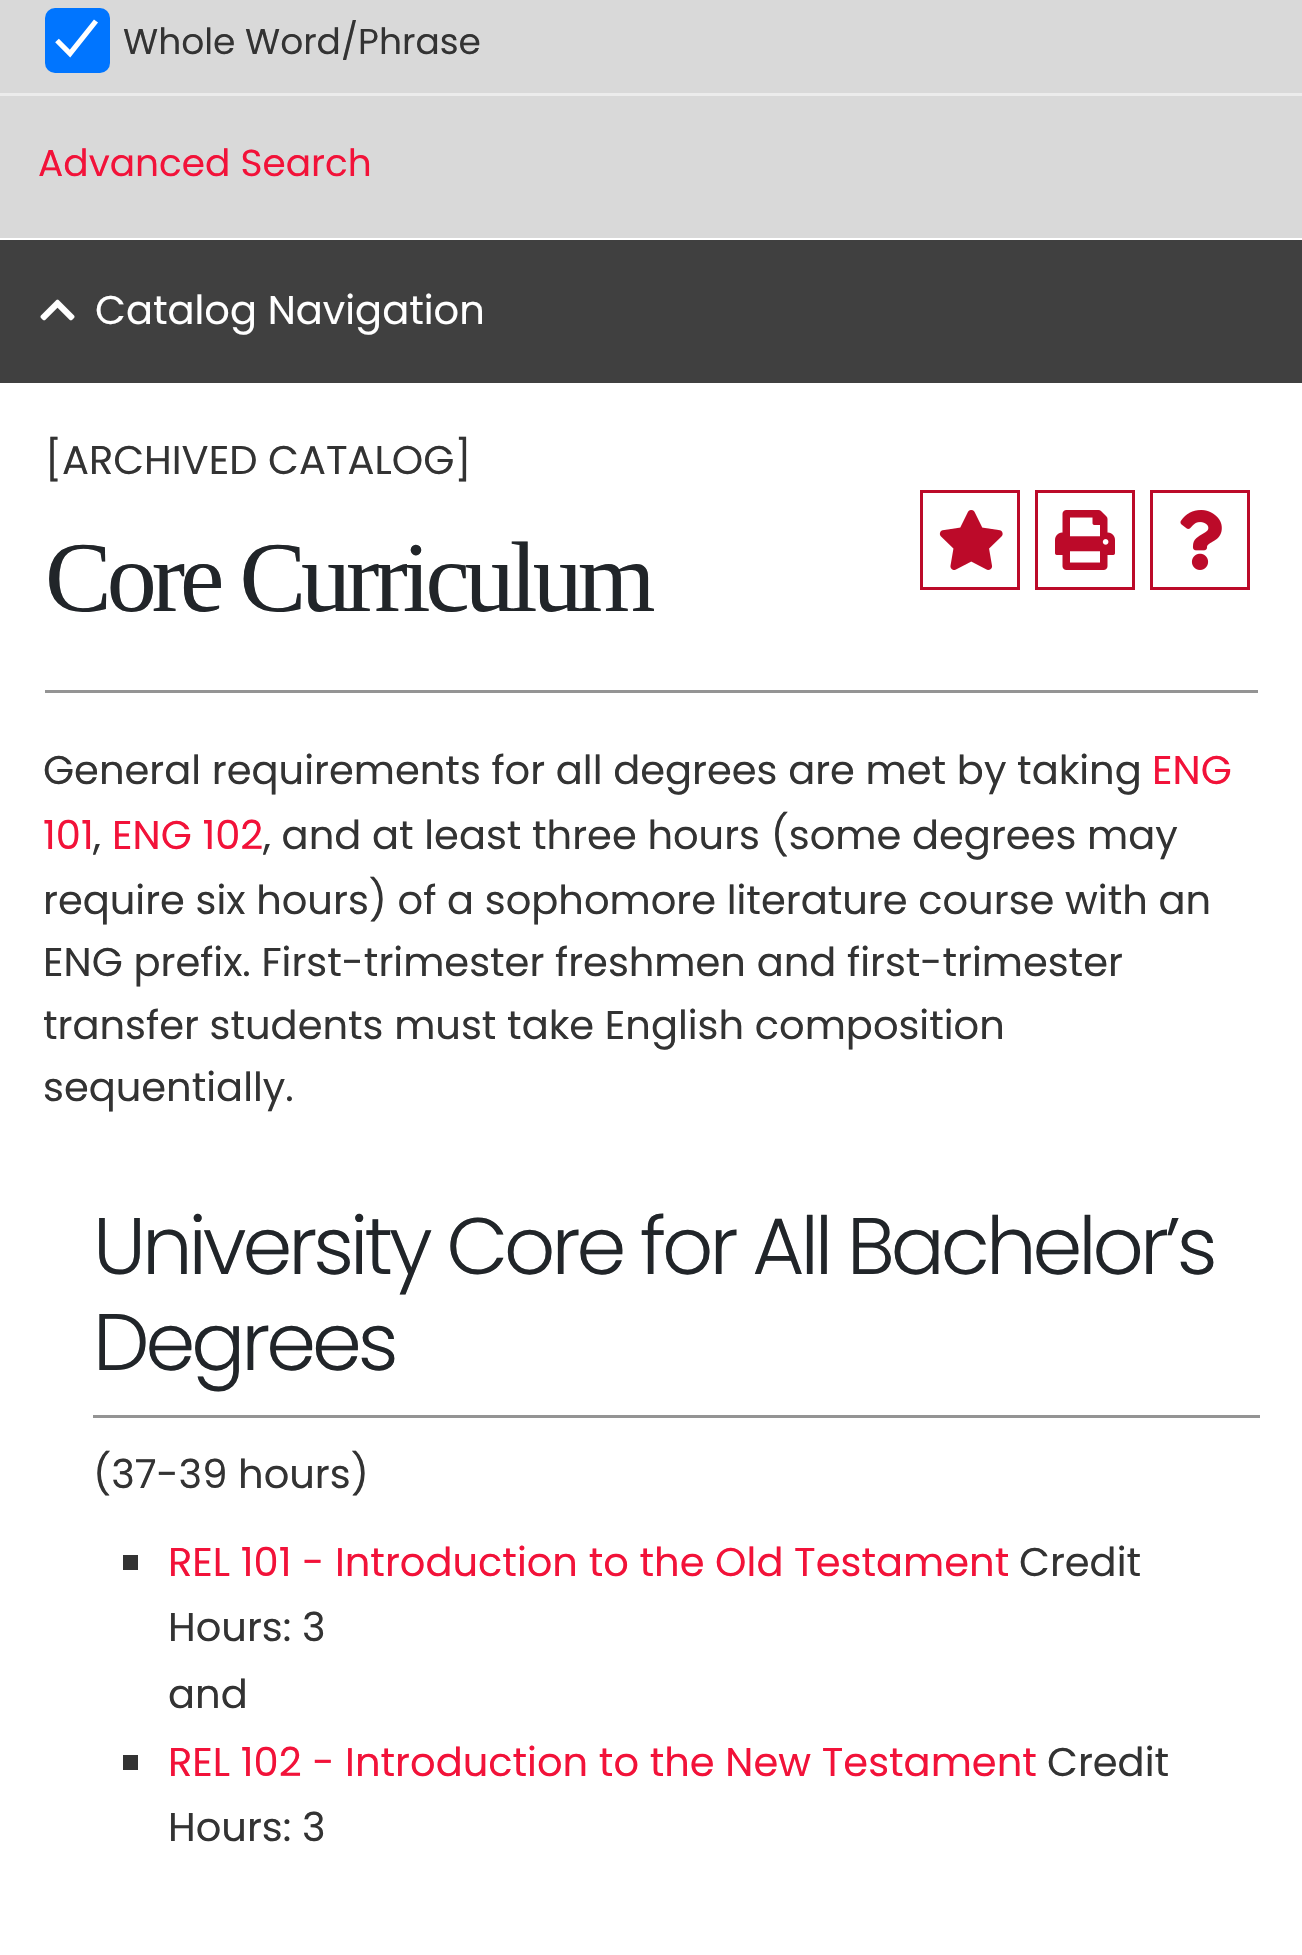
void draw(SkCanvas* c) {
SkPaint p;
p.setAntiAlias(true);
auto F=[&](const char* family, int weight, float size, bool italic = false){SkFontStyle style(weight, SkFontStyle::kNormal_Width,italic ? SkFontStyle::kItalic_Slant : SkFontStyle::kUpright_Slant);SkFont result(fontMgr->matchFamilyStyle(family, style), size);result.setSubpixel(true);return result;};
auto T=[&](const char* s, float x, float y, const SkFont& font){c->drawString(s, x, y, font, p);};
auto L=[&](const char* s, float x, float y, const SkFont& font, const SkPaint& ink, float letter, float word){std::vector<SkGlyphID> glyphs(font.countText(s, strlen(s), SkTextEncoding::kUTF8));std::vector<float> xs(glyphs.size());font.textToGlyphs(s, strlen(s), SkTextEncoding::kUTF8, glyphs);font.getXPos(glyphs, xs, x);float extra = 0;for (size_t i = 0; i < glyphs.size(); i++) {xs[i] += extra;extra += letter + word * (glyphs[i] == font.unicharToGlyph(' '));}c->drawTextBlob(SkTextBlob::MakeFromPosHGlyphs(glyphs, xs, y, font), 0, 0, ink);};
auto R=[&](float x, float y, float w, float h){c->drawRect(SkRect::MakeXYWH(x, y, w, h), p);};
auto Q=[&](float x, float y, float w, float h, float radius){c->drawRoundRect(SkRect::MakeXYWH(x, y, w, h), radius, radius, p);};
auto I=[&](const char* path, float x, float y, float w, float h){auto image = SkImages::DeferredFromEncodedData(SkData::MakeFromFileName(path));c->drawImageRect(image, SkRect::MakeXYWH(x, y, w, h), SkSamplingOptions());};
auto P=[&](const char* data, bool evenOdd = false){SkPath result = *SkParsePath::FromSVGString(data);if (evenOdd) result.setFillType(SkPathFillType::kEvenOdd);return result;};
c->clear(0xffffffff);
p.setColor(0xffd9d9d9);
R(0,0,1302,238);
p.setColor(0xff0075ff);
Q(45,8,65,65,10);
p.setStroke(true);
p.setStrokeWidth(5.2);
p.setColor(0xffffffff);
c->drawPath(P("M57 40.5l13 13l26-32.5"),p);
auto f1 = F("Poppins",400,36);
p.setStroke(false);
p.setColor(0xff333333);
T("Whole Word/Phrase",123,54,f1);
p.setColor(0xffececec);
R(0,93,1302,3);
auto f2 = F("Poppins",400,37.5);
p.setColor(0xfff21239);
T("Advanced Search",38,176,f2);
p.setColor(0xff404040);
R(0,240,1302,143);
I("1.png",40,299,35,22);
auto f3 = F("Poppins",400,40);
p.setColor(0xffffffff);
T("Catalog Navigation",95,324,f3);
p.setColor(0xff333333);
T("[ARCHIVED CATALOG]",45,474,f3);
auto f4 = F("Liberation Serif",400,100);
p.setColor(0xff212529);
L("Core Curriculum",45,611,f4,p,-5,0);
p.setStroke(true);
p.setStrokeWidth(3);
p.setColor(0xffbc0a29);
c->drawRect(SkRect::MakeXYWH(921.5,491.5,97,97),p);
I("2.png",939,510,64,60);
c->drawRect(SkRect::MakeXYWH(1036.5,491.5,97,97),p);
I("3.png",1055,510,60,60);
c->drawRect(SkRect::MakeXYWH(1151.5,491.5,97,97),p);
I("4.png",1180,510,42,60);
p.setStroke(false);
p.setColor(0xff949494);
R(45,690,1213,3);
p.setColor(0xff333333);
T("General requirements for all degrees are met by taking",43,784,f3);
p.setColor(0xfff21239);
T("ENG",1152,784,f3);
T("101",43,849,f3);
p.setColor(0xff333333);
T(",",93,849,f3);
p.setColor(0xfff21239);
T("ENG 102",112,849,f3);
p.setColor(0xff333333);
T(", and at least three hours (some degrees may",263,849,f3);
T("require six hours) of a sophomore literature course with an",43,914,f3);
T("ENG prefix. First-trimester freshmen and first-trimester",43,976,f3);
T("transfer students must take English composition",43,1039,f3);
T("sequentially.",43,1101,f3);
auto f5 = F("Poppins",300,80);
p.setColor(0xff212529);
L("University Core for All Bachelor’s",93,1274,f5,p,-4,0);
L("Degrees",93,1370,f5,p,-4,0);
p.setColor(0xff949494);
R(93,1415,1167,3);
p.setColor(0xff333333);
T("(37-39 hours)",93,1488,f3);
R(123,1555,15,15);
p.setColor(0xfff21239);
T("REL 101 - Introduction to the Old Testament",168,1576,f3);
p.setColor(0xff333333);
T("Credit",1019,1576,f3);
T("Hours: 3",168,1641,f3);
T("and",168,1708,f3);
R(123,1755,15,15);
p.setColor(0xfff21239);
T("REL 102 - Introduction to the New Testament",168,1776,f3);
p.setColor(0xff333333);
T("Credit",1047,1776,f3);
T("Hours: 3",168,1841,f3);
}
